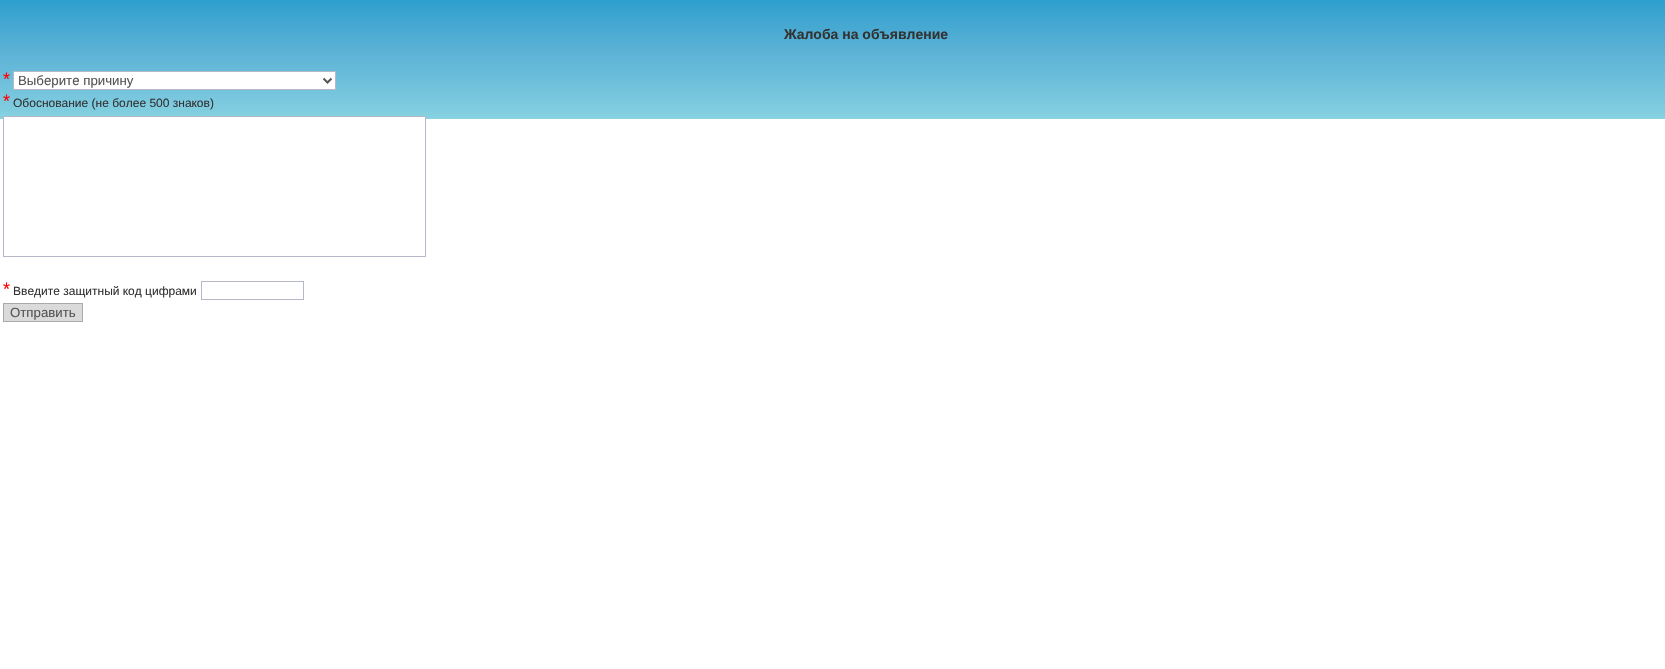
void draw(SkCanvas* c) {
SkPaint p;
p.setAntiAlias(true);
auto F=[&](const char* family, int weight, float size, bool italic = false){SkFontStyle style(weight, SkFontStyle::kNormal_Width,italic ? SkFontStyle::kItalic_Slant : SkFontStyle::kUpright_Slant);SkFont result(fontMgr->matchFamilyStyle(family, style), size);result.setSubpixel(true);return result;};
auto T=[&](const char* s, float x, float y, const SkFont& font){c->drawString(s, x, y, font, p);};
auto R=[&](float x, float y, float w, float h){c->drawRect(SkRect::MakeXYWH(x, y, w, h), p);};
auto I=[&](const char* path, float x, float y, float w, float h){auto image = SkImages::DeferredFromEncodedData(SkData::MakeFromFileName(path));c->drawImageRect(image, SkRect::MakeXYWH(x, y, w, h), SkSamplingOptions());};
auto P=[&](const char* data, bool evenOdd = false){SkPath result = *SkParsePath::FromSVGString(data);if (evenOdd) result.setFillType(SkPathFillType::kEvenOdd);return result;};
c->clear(0xffffffff);
I("1.png",0,0,1665,119);
auto f1 = F("Liberation Sans",700,14);
p.setColor(0xff333333);
T("Жалоба на объявление",784,39,f1);
auto f2 = F("Liberation Sans",400,18);
p.setColor(0xffff0000);
T("*",3,85,f2);
p.setColor(0xffffffff);
c->drawRect(SkRect::MakeXYWH(13.5,71.5,322,18),p);
p.setStroke(true);
p.setStrokeWidth(1);
p.setColor(0xffb5b8c8);
c->drawRect(SkRect::MakeXYWH(13.5,71.5,322,18),p);
p.setStrokeWidth(2);
p.setColor(0xff555555);
c->drawPath(P("M323.5 78.5l4 4l4-4"),p);
auto f3 = F("Liberation Sans",400,13.25);
p.setStroke(false);
T("Выберите причину",18,85,f3);
p.setColor(0xffff0000);
T("*",3,107,f2);
auto f4 = F("Liberation Sans",400,12);
p.setColor(0xff333333);
T("Обоснование (не более 500 знаков)",13,107,f4);
p.setColor(0xffffffff);
R(4,117,421,2);
p.setStroke(true);
p.setStrokeWidth(1);
p.setColor(0xffb5b8c8);
c->drawRect(SkRect::MakeXYWH(3.5,116.5,422,140),p);
p.setStroke(false);
p.setColor(0xffff0000);
T("*",3,295,f2);
p.setColor(0xff333333);
T("Введите защитный код цифрами",13,295,f4);
p.setStroke(true);
p.setColor(0xffb5b8c8);
c->drawRect(SkRect::MakeXYWH(201.5,281.5,102,18),p);
p.setStroke(false);
p.setColor(0xffdadada);
c->drawRect(SkRect::MakeXYWH(3.5,303.5,79,18),p);
p.setStroke(true);
p.setColor(0xffaaaaaa);
c->drawRect(SkRect::MakeXYWH(3.5,303.5,79,18),p);
p.setStroke(false);
p.setColor(0xff555555);
T("Отправить",10,317,f3);
}
